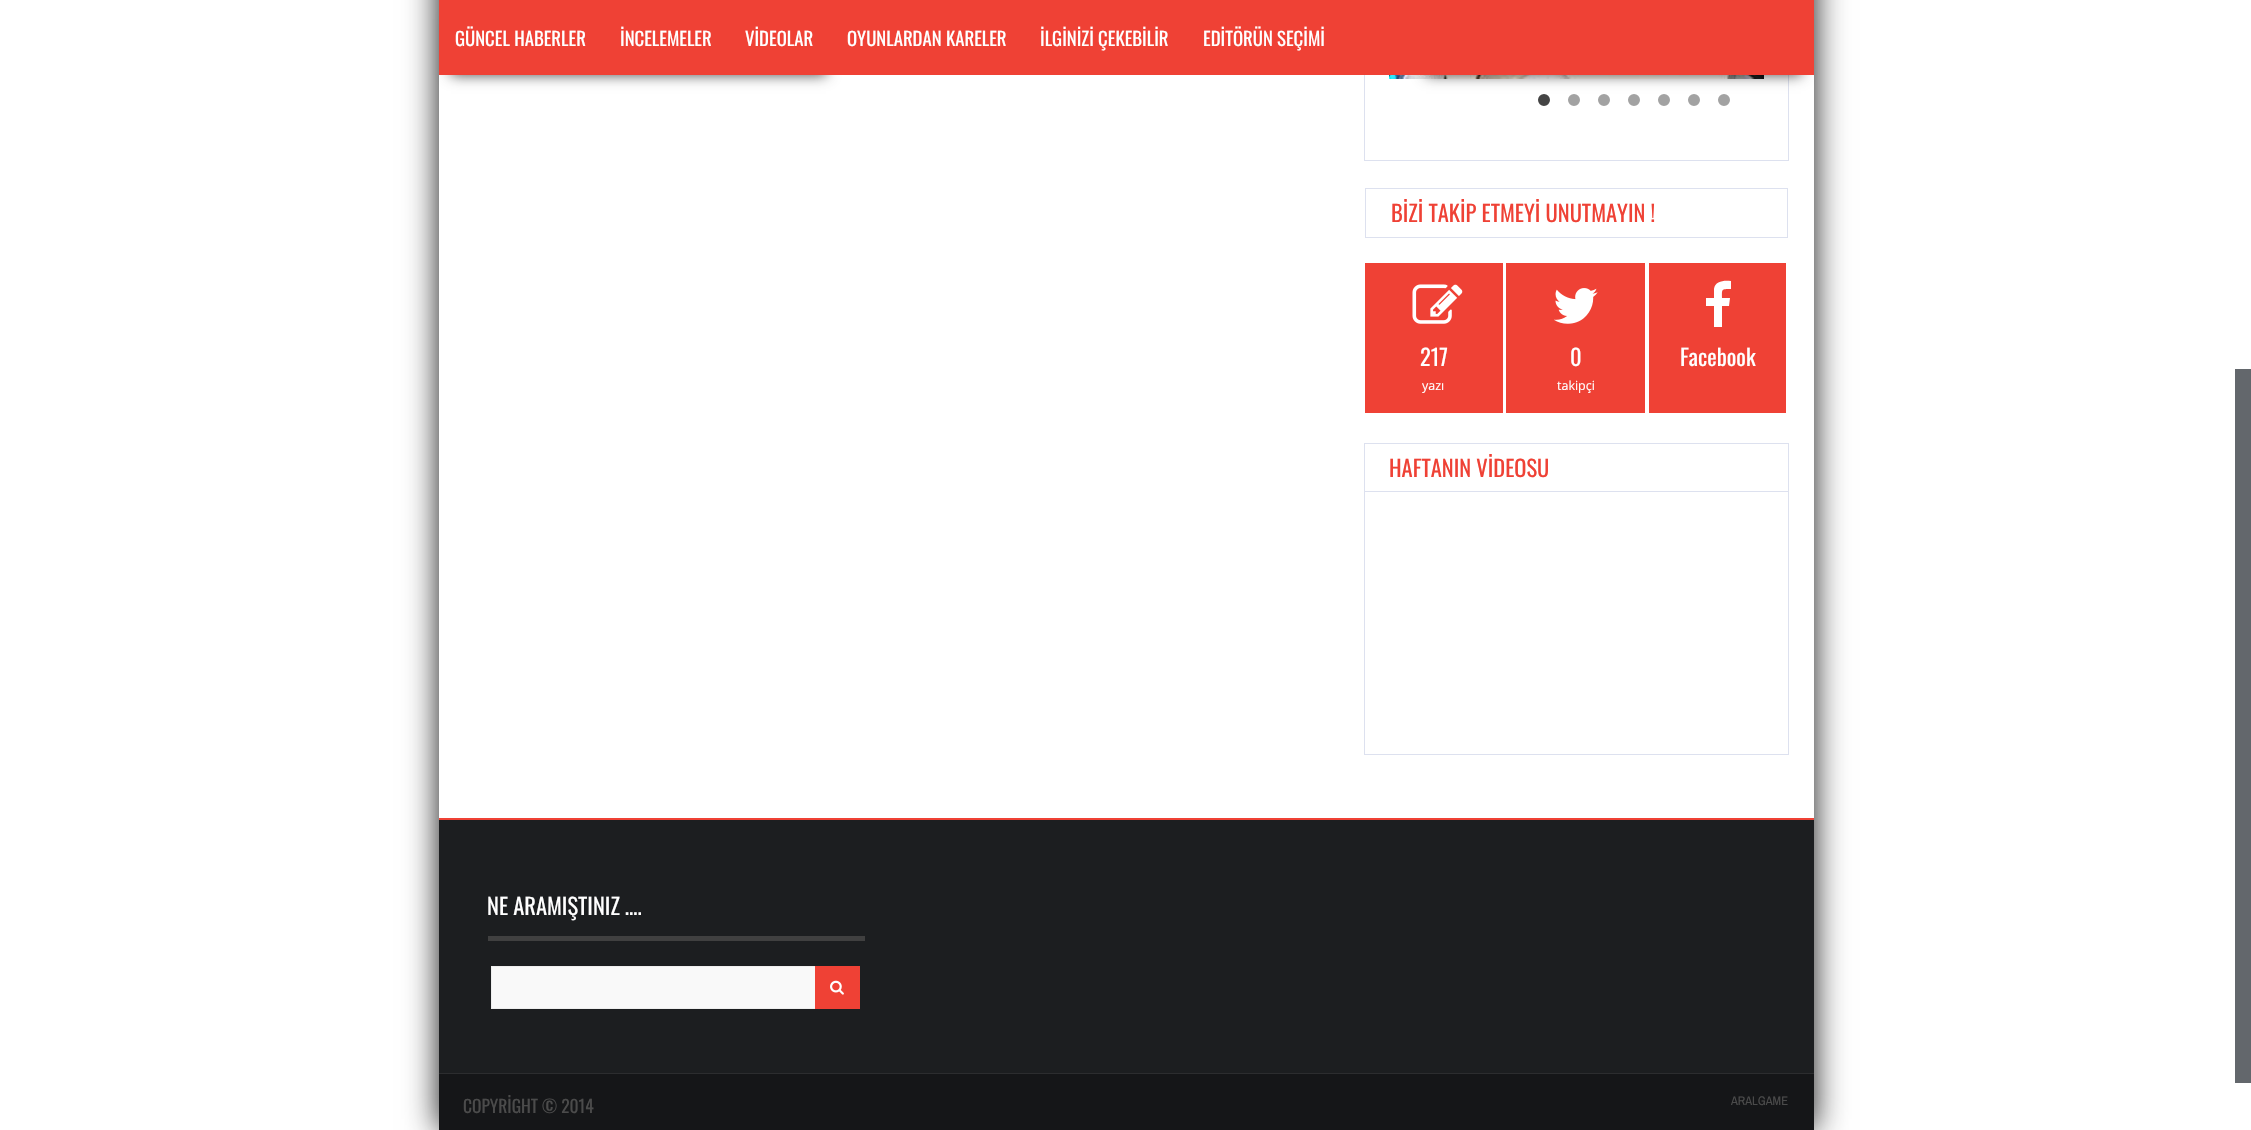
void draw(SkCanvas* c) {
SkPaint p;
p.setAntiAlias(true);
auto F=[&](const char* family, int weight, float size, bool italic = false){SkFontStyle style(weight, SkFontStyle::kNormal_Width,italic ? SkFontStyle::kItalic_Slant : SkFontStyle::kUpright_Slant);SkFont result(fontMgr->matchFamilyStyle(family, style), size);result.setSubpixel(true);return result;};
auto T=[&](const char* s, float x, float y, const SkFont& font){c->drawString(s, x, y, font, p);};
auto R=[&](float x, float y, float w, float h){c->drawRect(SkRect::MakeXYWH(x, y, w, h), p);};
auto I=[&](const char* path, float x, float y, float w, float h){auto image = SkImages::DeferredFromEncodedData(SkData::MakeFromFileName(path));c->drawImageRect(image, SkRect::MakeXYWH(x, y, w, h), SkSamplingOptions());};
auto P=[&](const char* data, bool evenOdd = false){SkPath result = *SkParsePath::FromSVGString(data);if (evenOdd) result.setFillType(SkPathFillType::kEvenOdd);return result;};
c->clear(0xffffffff);
p.setColor(0xe6000000);
p.setMaskFilter(SkMaskFilter::MakeBlur(kNormal_SkBlurStyle, 15.5));
c->drawRect(SkRect::MakeXYWH(439,-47,1375,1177),p);
p.setMaskFilter(nullptr);
p.setColor(0xffffffff);
R(439,75,1375,743);
p.setColor(0xb3000000);
p.setMaskFilter(SkMaskFilter::MakeBlur(kNormal_SkBlurStyle, 6.5));
c->drawRect(SkRect::MakeXYWH(451,19,375,56),p);
p.setMaskFilter(nullptr);
p.setStroke(true);
p.setStrokeWidth(1);
p.setColor(0xffdde1ef);
c->drawRect(SkRect::MakeXYWH(1364.5,-.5,424,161),p);
I("1.png",1389,75,375,4);
p.setStroke(false);
p.setColor(0xff444444);
c->drawCircle(1544,100,7.5,p);
p.setStroke(true);
p.setStrokeWidth(3);
p.setColor(0xffffffff);
c->drawCircle(1544,100,7.5,p);
p.setStroke(false);
p.setColor(0xffa2a2a2);
c->drawCircle(1574,100,7.5,p);
p.setStroke(true);
p.setColor(0xffffffff);
c->drawCircle(1574,100,7.5,p);
p.setStroke(false);
p.setColor(0xffa2a2a2);
c->drawCircle(1604,100,7.5,p);
p.setStroke(true);
p.setColor(0xffffffff);
c->drawCircle(1604,100,7.5,p);
p.setStroke(false);
p.setColor(0xffa2a2a2);
c->drawCircle(1634,100,7.5,p);
p.setStroke(true);
p.setColor(0xffffffff);
c->drawCircle(1634,100,7.5,p);
p.setStroke(false);
p.setColor(0xffa2a2a2);
c->drawCircle(1664,100,7.5,p);
p.setStroke(true);
p.setColor(0xffffffff);
c->drawCircle(1664,100,7.5,p);
p.setStroke(false);
p.setColor(0xffa2a2a2);
c->drawCircle(1694,100,7.5,p);
p.setStroke(true);
p.setColor(0xffffffff);
c->drawCircle(1694,100,7.5,p);
p.setStroke(false);
p.setColor(0xffa2a2a2);
c->drawCircle(1724,100,7.5,p);
p.setStroke(true);
p.setColor(0xffffffff);
c->drawCircle(1724,100,7.5,p);
p.setStroke(false);
p.setColor(0xb3000000);
p.setMaskFilter(SkMaskFilter::MakeBlur(kNormal_SkBlurStyle, 6.5));
c->drawRect(SkRect::MakeXYWH(1426,19,375,56),p);
p.setMaskFilter(nullptr);
p.setColor(0xffef4135);
R(439,0,1375,75);
auto f1 = F("Oswald",400,18.75);
p.setColor(0xffffffff);
T("GÜNCEL HABERLER",455,46,f1);
T("İNCELEMELER",620,46,f1);
T("VİDEOLAR",745,46,f1);
T("OYUNLARDAN KARELER",847,46,f1);
T("İLGİNİZİ ÇEKEBİLİR",1040,46,f1);
T("EDİTÖRÜN SEÇİMİ",1203,46,f1);
p.setStroke(true);
p.setStrokeWidth(1);
p.setColor(0xffdde1ef);
c->drawRect(SkRect::MakeXYWH(1365.5,188.5,422,49),p);
auto f2 = F("Oswald",400,22.5);
p.setStroke(false);
p.setColor(0xffef4135);
T("BİZİ TAKİP ETMEYİ UNUTMAYIN !",1391,222,f2);
R(1365,263,138,150);
I("2.png",1412,284,51,40);
p.setColor(0xffffffff);
T("217",1420,366,f2);
auto f3 = F("Open Sans",400,12.5);
T("yazı",1422,390,f3);
p.setColor(0xffef4135);
R(1506,263,139,150);
I("3.png",1554,288,44,36);
p.setColor(0xffffffff);
T("0",1570,366,f2);
T("takipçi",1557,390,f3);
p.setColor(0xffef4135);
R(1649,263,137,150);
p.setColor(0xffffffff);
c->drawPath(P("M1706 306v-8h8v-9c1-8 10-9 17-8v8c-10 0-9 0-9 9h8l-1 8h-7v21h-8v-21z"),p);
T("Facebook",1680,366,f2);
p.setStroke(true);
p.setColor(0xffdde1ef);
c->drawRect(SkRect::MakeXYWH(1364.5,443.5,424,311),p);
p.setStroke(false);
R(1365,491,423,1);
p.setColor(0xffef4135);
T("HAFTANIN VİDEOSU",1389,477,f2);
R(439,818,1375,2);
p.setColor(0xff1c1e20);
R(439,820,1375,253);
p.setColor(0xff404040);
R(488,936,377,5);
p.setColor(0xffffffff);
T("NE ARAMIŞTINIZ ….",487,915,f2);
p.setColor(0xfff9f9f9);
c->drawRect(SkRect::MakeXYWH(491.5,966.5,324,42),p);
p.setStroke(true);
p.setColor(0xffeeeeee);
c->drawRect(SkRect::MakeXYWH(491.5,966.5,324,42),p);
p.setStroke(false);
p.setColor(0xffef4135);
R(815,966,45,43);
I("4.png",830,980,14,15);
p.setColor(0xff151618);
R(439,1074,1375,56);
p.setColor(0xff2c2d2f);
R(439,1073,1375,1);
auto f4 = F("Oswald",400,17.5);
p.setColor(0xff4b4b4b);
T("COPYRİGHT © 2014",463,1113,f4);
auto f5 = F("Archivo Narrow",400,12.5);
T("ARALGAME",1731,1105,f5);
p.setColor(0xff63676c);
R(2235,369,16,714);
}
